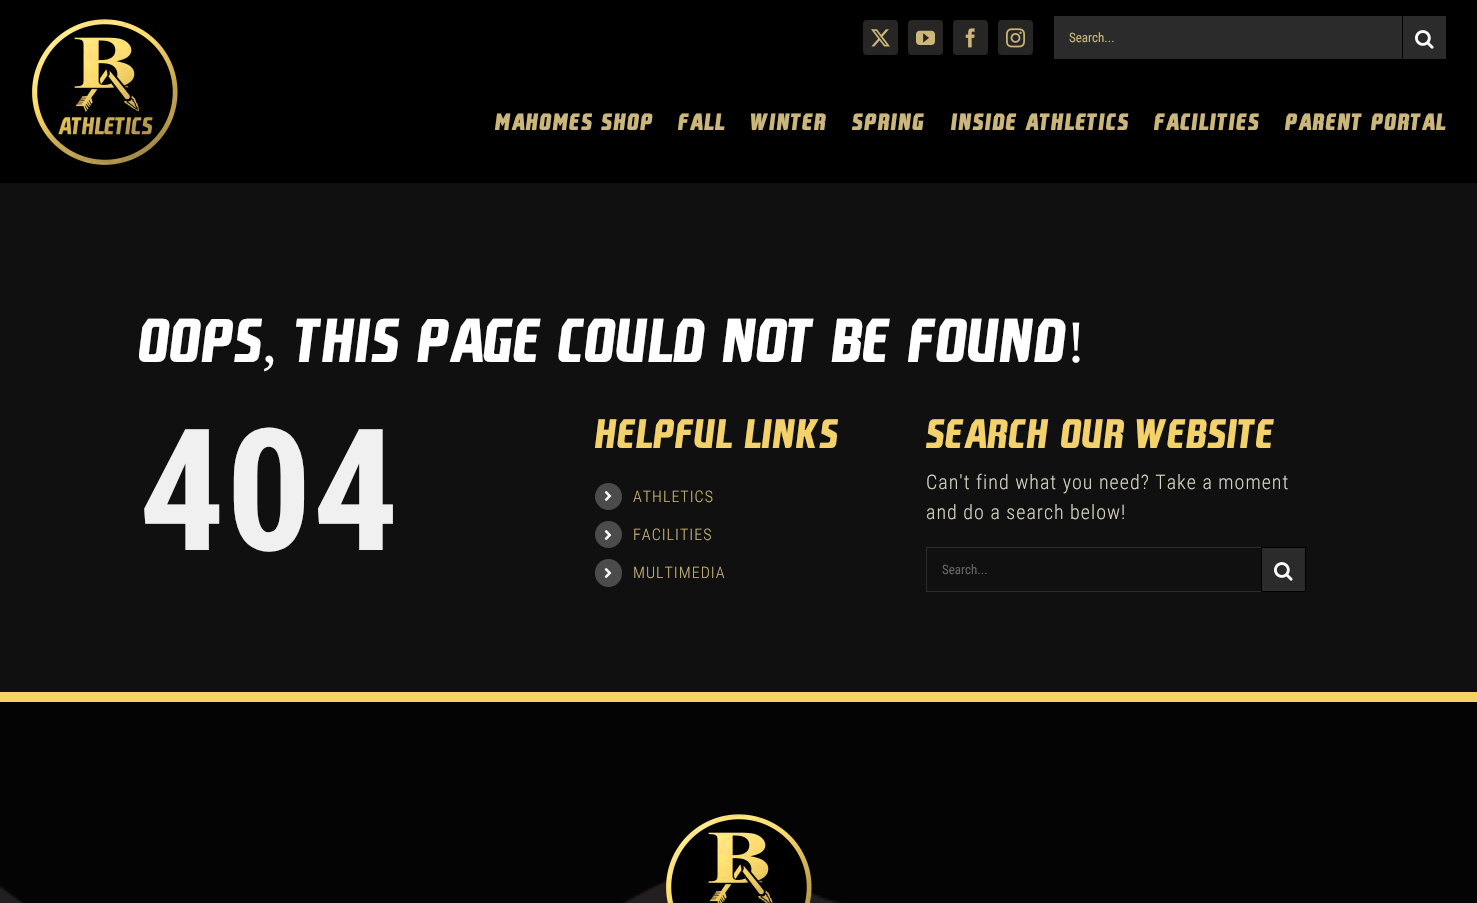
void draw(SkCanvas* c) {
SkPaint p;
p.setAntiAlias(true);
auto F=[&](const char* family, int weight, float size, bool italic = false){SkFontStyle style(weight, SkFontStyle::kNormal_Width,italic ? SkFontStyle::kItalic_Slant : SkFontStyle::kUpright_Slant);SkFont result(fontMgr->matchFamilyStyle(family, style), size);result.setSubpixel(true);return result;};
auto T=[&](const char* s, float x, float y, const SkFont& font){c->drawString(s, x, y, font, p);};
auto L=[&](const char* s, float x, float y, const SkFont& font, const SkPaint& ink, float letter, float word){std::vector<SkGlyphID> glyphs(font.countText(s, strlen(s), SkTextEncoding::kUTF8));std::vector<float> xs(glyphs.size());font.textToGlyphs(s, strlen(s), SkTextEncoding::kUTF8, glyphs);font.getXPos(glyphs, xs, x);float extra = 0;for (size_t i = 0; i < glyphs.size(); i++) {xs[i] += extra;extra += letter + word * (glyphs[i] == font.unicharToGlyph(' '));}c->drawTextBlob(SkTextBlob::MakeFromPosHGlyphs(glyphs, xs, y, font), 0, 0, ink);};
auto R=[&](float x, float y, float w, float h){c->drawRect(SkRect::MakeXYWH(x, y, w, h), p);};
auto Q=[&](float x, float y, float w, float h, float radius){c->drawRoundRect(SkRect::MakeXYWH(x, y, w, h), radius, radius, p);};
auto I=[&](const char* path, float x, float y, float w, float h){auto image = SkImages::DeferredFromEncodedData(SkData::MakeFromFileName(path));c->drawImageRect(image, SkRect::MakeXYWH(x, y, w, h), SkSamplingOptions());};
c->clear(0xff101010);
p.setColor(0xff000000);
R(0,0,1477,183);
I("1.png",32,19,146,146);
p.setColor(0xff272625);
Q(863,20,35,35,4);
I("2.png",871,29,19,18);
Q(908,20,35,35,4);
I("3.png",916,30,19,15);
Q(953,20,35,35,4);
I("4.png",965,28,10,20);
Q(998,20,35,35,4);
I("5.png",1006,28,19,20);
p.setColor(0xff2b2b2b);
R(1054,16,348,43);
auto f1 = F("Roboto Condensed",400,13);
p.setColor(0xffcbb77b);
T("Search...",1069,42,f1);
p.setColor(0xff2b2b2b);
R(1403,16,43,43);
I("6.png",1415,30,19,19);
auto f2 = F("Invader",700,22);
p.setColor(0xffcbb77b);
L("MAHOMES SHOP",495,130,f2,p,2,0);
L("FALL",678,130,f2,p,2,0);
L("WINTER",751,130,f2,p,2,0);
L("SPRING",852,130,f2,p,2,0);
L("INSIDE ATHLETICS",951,130,f2,p,2,0);
L("FACILITIES",1154,130,f2,p,2,0);
L("PARENT PORTAL",1285,130,f2,p,2,0);
auto f3 = F("Invader",400,60);
p.setColor(0xffffffff);
L("Oops",139,362,f3,p,1,0);
auto f4 = F("Liberation Serif",400,60);
L(",",262,362,f4,p,1,0);
L("This Page Could Not Be Found",296,362,f3,p,1,0);
L("!",1066,362,f4,p,1,0);
auto f5 = F("Roboto Condensed",700,170);
p.setColor(0xfff0f0f0);
L("404",139,550,f5,p,1,0);
auto f6 = F("Invader",400,40);
p.setColor(0xfff3d26c);
L("Helpful Links",595,448,f6,p,1,0);
p.setColor(0xff4b4b4b);
c->drawCircle(608.5,496.5,13.5,p);
I("7.png",604,491,8,10);
auto f7 = F("Roboto Condensed",300,16);
p.setColor(0xffcbb77b);
L("ATHLETICS",633,502,f7,p,1,0);
p.setColor(0xff4b4b4b);
c->drawCircle(608.5,534.5,13.5,p);
I("7.png",604,530,8,10);
p.setColor(0xffcbb77b);
L("FACILITIES",633,540,f7,p,1,0);
p.setColor(0xff4b4b4b);
Q(595,559,27,28,13.5);
I("7.png",604,568,8,10);
p.setColor(0xffcbb77b);
L("MULTIMEDIA",633,578,f7,p,1,0);
p.setColor(0xfff3d26c);
L("Search Our Website",926,448,f6,p,1,0);
auto f8 = F("Roboto Condensed",300,20);
p.setColor(0xffd6d2c2);
L("Can't find what you need? Take a moment",926,489,f8,p,1,0);
L("and do a search below!",926,519,f8,p,1,0);
p.setColor(0xff2d2d2d);
R(926,547,335,1);
R(926,591,335,1);
R(926,547,1,45);
p.setColor(0xff666666);
T("Search...",942,574,f1);
p.setColor(0xff2b2b2b);
c->drawRect(SkRect::MakeXYWH(1261.5,547.5,44,44),p);
p.setStroke(true);
p.setStrokeWidth(1);
p.setColor(0xff000000);
c->drawRect(SkRect::MakeXYWH(1261.5,547.5,44,44),p);
I("6.png",1274,562,19,19);
p.setStroke(false);
p.setColor(0xff040404);
R(0,702,1477,201);
I("8.png",0,878,845,25);
p.setColor(0xfff4d264);
R(0,692,1477,10);
I("9.png",666,814,146,89);
}
